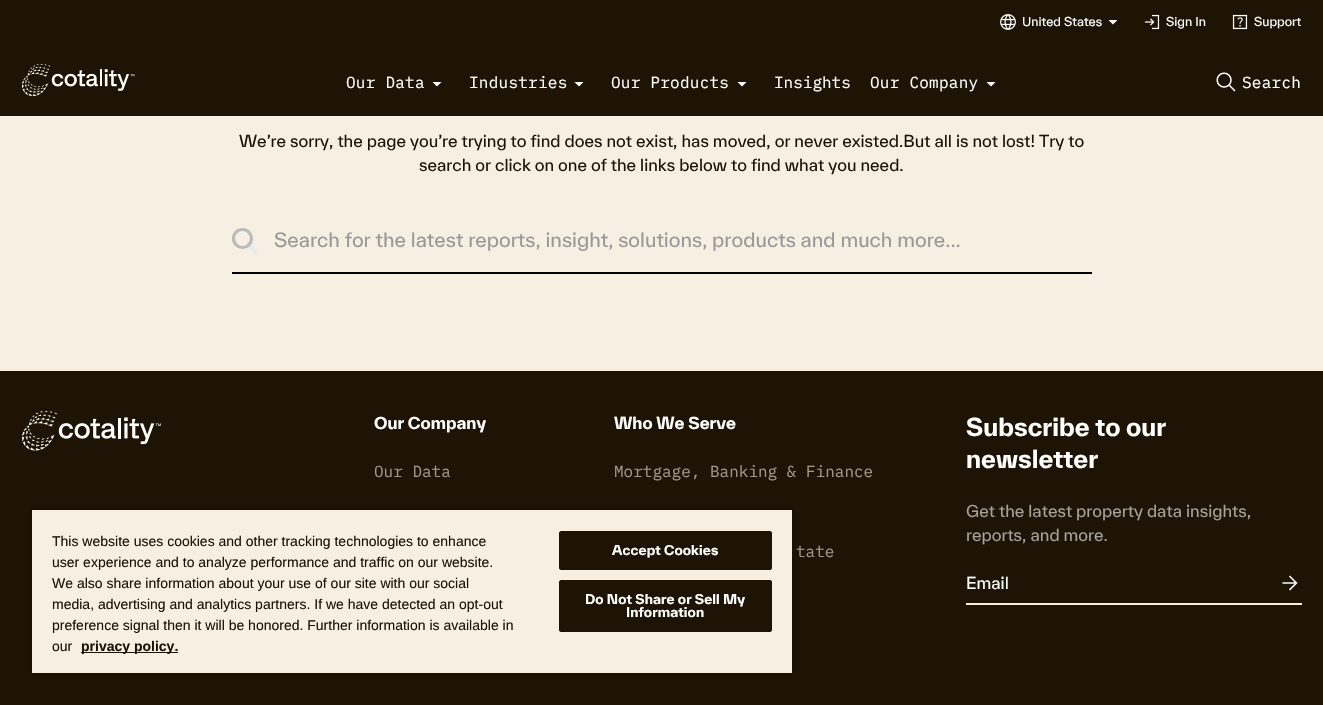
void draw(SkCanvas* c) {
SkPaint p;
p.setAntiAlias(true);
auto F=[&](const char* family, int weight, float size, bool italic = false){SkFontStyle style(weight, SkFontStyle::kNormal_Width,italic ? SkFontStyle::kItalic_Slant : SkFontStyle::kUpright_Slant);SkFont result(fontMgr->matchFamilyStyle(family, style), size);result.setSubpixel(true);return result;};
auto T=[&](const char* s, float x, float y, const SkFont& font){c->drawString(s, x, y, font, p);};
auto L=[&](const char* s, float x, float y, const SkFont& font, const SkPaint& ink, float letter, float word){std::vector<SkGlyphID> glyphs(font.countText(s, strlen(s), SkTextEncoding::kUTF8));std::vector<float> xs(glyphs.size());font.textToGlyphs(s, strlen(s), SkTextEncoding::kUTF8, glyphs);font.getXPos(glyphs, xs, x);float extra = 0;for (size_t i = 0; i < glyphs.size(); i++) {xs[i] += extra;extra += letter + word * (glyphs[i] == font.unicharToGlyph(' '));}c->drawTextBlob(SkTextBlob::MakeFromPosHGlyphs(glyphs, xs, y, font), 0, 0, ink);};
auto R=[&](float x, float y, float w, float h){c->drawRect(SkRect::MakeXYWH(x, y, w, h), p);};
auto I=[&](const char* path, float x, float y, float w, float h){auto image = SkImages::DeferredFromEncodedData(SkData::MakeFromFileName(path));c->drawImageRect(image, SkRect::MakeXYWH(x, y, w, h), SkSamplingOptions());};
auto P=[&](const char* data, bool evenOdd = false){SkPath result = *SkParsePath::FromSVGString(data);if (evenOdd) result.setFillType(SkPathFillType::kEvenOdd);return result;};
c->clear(0xfff7efe2);
p.setColor(0xff1e1405);
R(0,0,1323,116);
I("1.png",1000,14,16,16);
p.setColor(0xffffffff);
c->drawPath(P("M1113 24.5l-4.5-4.5h9z"),p);
auto f1 = F("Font",400,12);
T("United States",1022,26,f1);
I("2.png",1144,14,16,16);
T("Sign In",1166,26,f1);
I("3.png",1232,14,16,16);
T("Support",1254,26,f1);
I("4.png",22,64,113,32);
auto f2 = F("IBM Plex Mono",400,16);
L("Our Data",346,88,f2,p,.25,0);
c->drawPath(P("M437 86.5l-4.5-4.5h9z"),p);
L("Industries",469,88,f2,p,.25,0);
c->drawPath(P("M579 86.5l-4.5-4.5h9z"),p);
L("Our Products",611,88,f2,p,.25,0);
c->drawPath(P("M742 86.5l-4.5-4.5h9z"),p);
T("Insights",774,88,f2);
L("Our Company",870,88,f2,p,.25,0);
c->drawPath(P("M991 86.5l-4.5-4.5h9z"),p);
I("5.png",1216,72,20,20);
L("Search",1242,88,f2,p,.25,0);
auto f3 = F("Font",400,16);
p.setColor(0xff1e1405);
T("We’re sorry, the page you’re trying to find does not exist, has moved, or never existed.But all is not lost! Try to",239,147,f3);
T("search or click on one of the links below to find what you need.",419,171,f3);
p.setStroke(true);
p.setStrokeWidth(3.2);
p.setStrokeCap(SkPaint::kSquare_Cap);
p.setColor(0xffe1ebfa);
c->drawPath(P("M255 251l-6.5-6.5"),p);
p.setStrokeCap(SkPaint::kButt_Cap);
p.setColor(0xffbbbbbb);
c->drawCircle(242.5,238.5,9,p);
p.setStroke(false);
p.setColor(0xff000000);
R(232,272,860,2);
auto f4 = F("Font",400,19.2);
p.setColor(0xff999999);
T("Search for the latest reports, insight, solutions, products and much more...",274,247,f4);
p.setColor(0xff1e1405);
R(0,371,1323,334);
I("6.png",22,411,139,40);
auto f5 = F("Font",700,16);
p.setColor(0xffffffff);
T("Our Company",374,429,f5);
p.setColor(0xffa0978a);
T("Our Data",374,477,f2);
p.setColor(0xffffffff);
T("Who We Serve",614,429,f5);
p.setColor(0xffa0978a);
T("Mortgage, Banking & Finance",614,477,f2);
T("tate",796,557,f2);
auto f6 = F("Font",700,24);
p.setColor(0xffffffff);
T("Subscribe to our",966,436,f6);
T("newsletter",966,468,f6);
p.setColor(0xffa5a19b);
T("Get the latest property data insights,",966,517,f3);
T("reports, and more.",966,541,f3);
p.setColor(0xfff7efe2);
R(966,603,336,2);
p.setColor(0xffffffff);
T("Email",966,589,f3);
I("7.png",1282,575,16,16);
p.setColor(0x59000000);
p.setMaskFilter(SkMaskFilter::MakeBlur(kNormal_SkBlurStyle, 2));
c->drawRect(SkRect::MakeXYWH(32,508,760,165),p);
p.setMaskFilter(nullptr);
p.setColor(0xfff7efe2);
R(32,510,760,163);
auto f7 = F("Liberation Sans",400,14);
p.setColor(0xff1e1405);
T("This website uses cookies and other tracking technologies to enhance",52,546,f7);
T("user experience and to analyze performance and traffic on our website.",52,567,f7);
T("We also share information about your use of our site with our social",52,588,f7);
T("media, advertising and analytics partners. If we have detected an opt-out",52,609,f7);
T("preference signal then it will be honored. Further information is available in",52,630,f7);
T("our",52,651,f7);
R(81,652,97,1);
auto f8 = F("Liberation Sans",700,14);
T("privacy policy.",81,651,f8);
c->drawRoundRect(SkRect::MakeXYWH(559.5,531.5,212,38),1.5,1.5,p);
p.setStroke(true);
p.setStrokeWidth(1);
c->drawRoundRect(SkRect::MakeXYWH(559.5,531.5,212,38),1.5,1.5,p);
auto f9 = F("Font",700,13);
p.setStroke(false);
p.setColor(0xffffffff);
L("Accept Cookies",612,555,f9,p,.1,0);
p.setColor(0xff1e1405);
c->drawRoundRect(SkRect::MakeXYWH(559.5,580.5,212,51),1.5,1.5,p);
p.setStroke(true);
c->drawRoundRect(SkRect::MakeXYWH(559.5,580.5,212,51),1.5,1.5,p);
p.setStroke(false);
p.setColor(0xffffffff);
L("Do Not Share or Sell My",585,604,f9,p,.1,0);
L("Information",626,617,f9,p,.1,0);
}
